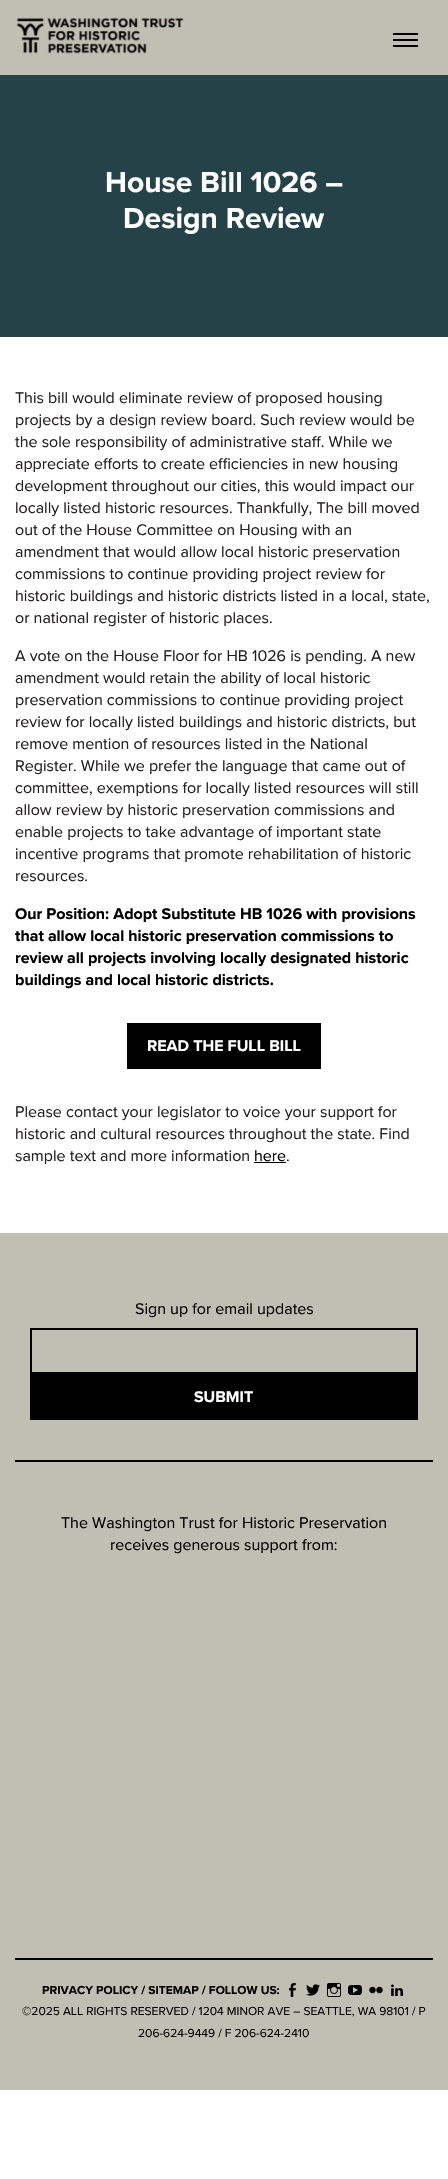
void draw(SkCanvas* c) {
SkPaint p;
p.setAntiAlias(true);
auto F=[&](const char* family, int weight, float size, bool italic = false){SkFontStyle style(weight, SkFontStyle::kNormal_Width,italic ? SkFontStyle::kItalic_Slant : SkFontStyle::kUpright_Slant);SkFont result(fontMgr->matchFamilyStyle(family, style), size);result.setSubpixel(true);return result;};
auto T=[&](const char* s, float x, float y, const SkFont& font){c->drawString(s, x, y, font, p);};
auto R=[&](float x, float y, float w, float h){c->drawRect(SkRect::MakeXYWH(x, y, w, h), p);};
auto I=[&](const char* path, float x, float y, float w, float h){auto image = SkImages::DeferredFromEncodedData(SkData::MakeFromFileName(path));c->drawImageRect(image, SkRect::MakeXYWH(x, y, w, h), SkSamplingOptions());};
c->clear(0xffc1beb4);
p.setColor(0xffffffff);
R(0,337,448,1842);
I("1.png",16,17,168,37);
p.setColor(0xff000000);
R(393,39,25,2);
R(393,33,25,2);
R(393,45,25,2);
p.setColor(0xff254249);
R(0,75,448,262);
auto f1 = F("Proxima Nova",700,30);
p.setColor(0xffffffff);
T("House Bill 1026 –",105,192,f1);
T("Design Review",123,228,f1);
auto f2 = F("Proxima Nova",400,16);
p.setColor(0xff231f20);
T("This bill would eliminate review of proposed housing",15,403,f2);
T("projects by a design review board. Such review would be",15,425,f2);
T("the sole responsibility of administrative staff. While we",15,447,f2);
T("appreciate efforts to create efficiencies in new housing",15,469,f2);
T("development throughout our cities, this would impact our",15,491,f2);
T("locally listed historic resources. Thankfully, The bill moved",15,513,f2);
T("out of the House Committee on Housing with an",15,535,f2);
T("amendment that would allow local historic preservation",15,557,f2);
T("commissions to continue providing project review for",15,579,f2);
T("historic buildings and historic districts listed in a local, state,",15,601,f2);
T("or national register of historic places.",15,623,f2);
T("A vote on the House Floor for HB 1026 is pending. A new",15,661,f2);
T("amendment would retain the ability of local historic",15,683,f2);
T("preservation commissions to continue providing project",15,705,f2);
T("review for locally listed buildings and historic districts, but",15,727,f2);
T("remove mention of resources listed in the National",15,749,f2);
T("Register. While we prefer the language that came out of",15,771,f2);
T("committee, exemptions for locally listed resources will still",15,793,f2);
T("allow review by historic preservation commissions and",15,815,f2);
T("enable projects to take advantage of important state",15,837,f2);
T("incentive programs that promote rehabilitation of historic",15,859,f2);
T("resources.",15,881,f2);
auto f3 = F("Proxima Nova",700,16);
p.setColor(0xff000000);
T("Our Position: Adopt Substitute HB 1026 with provisions",15,919,f3);
T("that allow local historic preservation commissions to",15,941,f3);
T("review all projects involving locally designated historic",15,963,f3);
T("buildings and local historic districts.",15,985,f3);
R(127,1023,194,46);
p.setColor(0xffffffff);
T("READ THE FULL BILL",147,1051,f3);
p.setColor(0xff231f20);
T("Please contact your legislator to voice your support for",15,1117,f2);
T("historic and cultural resources throughout the state. Find",15,1139,f2);
T("sample text and more information",15,1161,f2);
p.setColor(0xff000000);
T("here",254,1161,f2);
R(254,1162,32,1);
p.setColor(0xff231f20);
T(".",286,1161,f2);
p.setColor(0xffc1beb4);
R(0,1233,448,857);
p.setColor(0xff000000);
T("Sign up for email updates",135,1314,f2);
p.setStroke(true);
p.setStrokeWidth(2);
c->drawRect(SkRect::MakeXYWH(31,1329,386,44),p);
p.setStroke(false);
R(30,1374,388,46);
p.setColor(0xffffffff);
T("SUBMIT",194,1402,f3);
p.setColor(0xff000000);
R(15,1460,418,2);
T("The Washington Trust for Historic Preservation",61,1528,f2);
T("receives generous support from:",110,1550,f2);
R(15,1958,418,2);
auto f4 = F("Proxima Nova",700,12);
T("PRIVACY POLICY / SITEMAP / FOLLOW US:",42,1994,f4);
I("2.png",289,1983,7,14);
I("3.png",306,1984,14,12);
I("4.png",327,1983,14,14);
I("5.png",348,1985,14,10);
I("6.png",369,1986,14,8);
I("7.png",391,1984,12,12);
auto f5 = F("Proxima Nova",400,12);
T("©2025 ALL RIGHTS RESERVED / 1204 MINOR AVE – SEATTLE, WA 98101 / P",22,2015,f5);
T("206-624-9449 / F 206-624-2410",138,2037,f5);
}
